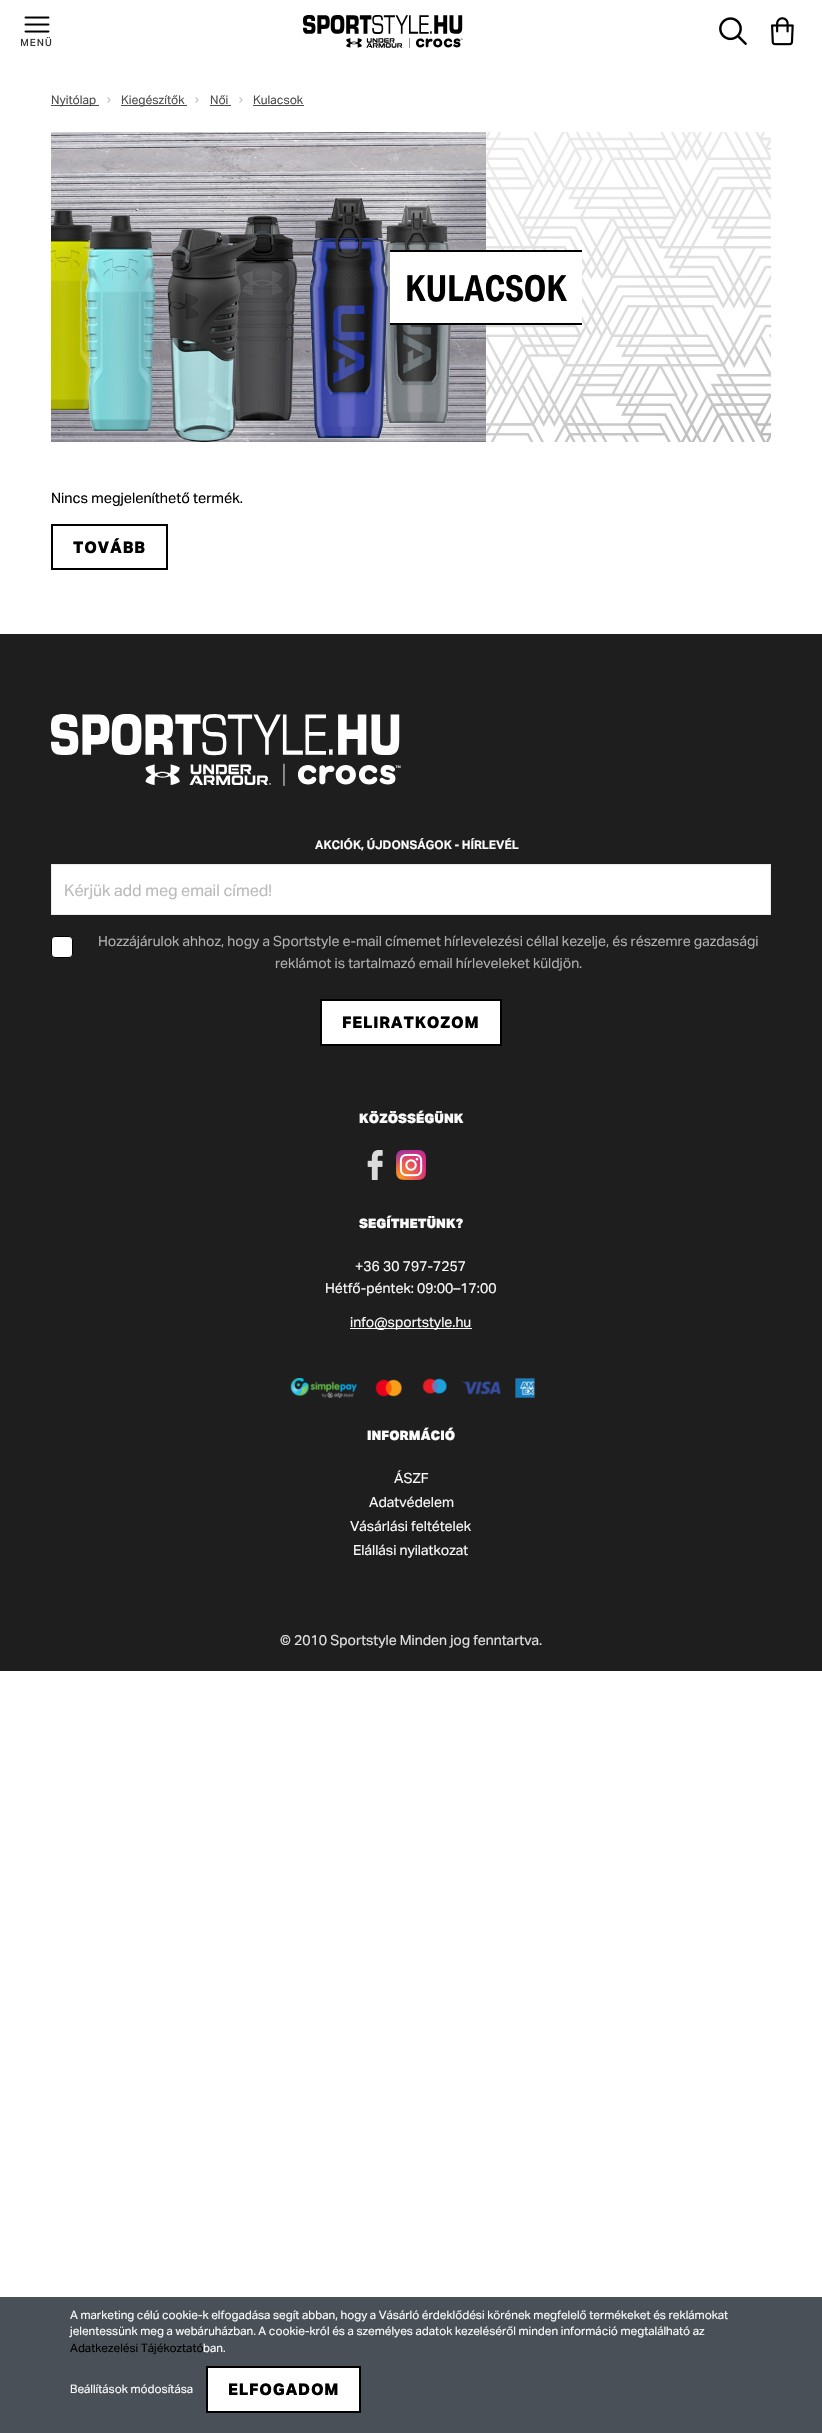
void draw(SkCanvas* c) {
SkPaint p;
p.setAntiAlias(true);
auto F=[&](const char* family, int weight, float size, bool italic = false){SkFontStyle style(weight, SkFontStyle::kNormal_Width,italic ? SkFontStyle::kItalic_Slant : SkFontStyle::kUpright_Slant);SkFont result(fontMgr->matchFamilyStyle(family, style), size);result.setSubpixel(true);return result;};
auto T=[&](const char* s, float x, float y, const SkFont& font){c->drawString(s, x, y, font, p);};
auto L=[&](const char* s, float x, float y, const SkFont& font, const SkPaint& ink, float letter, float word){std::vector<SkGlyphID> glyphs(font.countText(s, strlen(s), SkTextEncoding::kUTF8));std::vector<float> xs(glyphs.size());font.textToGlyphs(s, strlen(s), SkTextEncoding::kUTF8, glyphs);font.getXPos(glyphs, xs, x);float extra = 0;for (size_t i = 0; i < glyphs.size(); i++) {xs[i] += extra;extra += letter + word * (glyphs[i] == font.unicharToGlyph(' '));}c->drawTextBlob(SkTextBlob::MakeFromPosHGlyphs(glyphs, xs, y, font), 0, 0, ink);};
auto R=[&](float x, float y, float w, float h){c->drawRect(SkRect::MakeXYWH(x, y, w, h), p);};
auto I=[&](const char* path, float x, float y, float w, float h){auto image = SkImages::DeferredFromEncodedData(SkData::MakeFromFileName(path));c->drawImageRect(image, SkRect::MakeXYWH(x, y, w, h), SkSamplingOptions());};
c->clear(0xffffffff);
I("1.png",20,16,32,31);
I("2.png",303,15,160,33);
I("3.png",719,17,28,28);
I("4.png",771,17,23,29);
p.setColor(0xff4d4d4f);
R(51,105,48,1);
auto f1 = F("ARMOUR",400,12);
T("Nyitólap",51,104,f1);
I("5.png",107,97,4,6);
R(121,105,66,1);
T("Kiegészítők",121,104,f1);
I("5.png",195,97,4,6);
T("Női",210,104,f1);
R(210,105,21,1);
I("5.png",239,97,4,6);
T("Kulacsok",253,104,f1);
R(253,105,51,1);
I("6.png",486,132,285,310);
I("7.png",51,132,435,310);
p.setColor(0xffffffff);
R(390,252,192,71);
p.setColor(0xff000000);
R(390,250,192,2);
R(390,323,192,2);
auto f2 = F("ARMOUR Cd",700,36);
T("KULACSOK",405,301,f2);
auto f3 = F("ARMOUR",400,14.4);
T("Nincs megjeleníthető termék.",51,503,f3);
p.setStroke(true);
p.setStrokeWidth(2);
c->drawRect(SkRect::MakeXYWH(52,525,115,44),p);
auto f4 = F("ARMOUR",700,16);
p.setStroke(false);
L("TOVÁBB",73,553,f4,p,.75,0);
p.setColor(0xff1e1e1f);
R(0,634,822,1037);
I("8.png",51,714,350,72);
auto f5 = F("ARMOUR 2",700,12);
p.setColor(0xfffafafa);
T("AKCIÓK, ÚJDONSÁGOK - HÍRLEVÉL",315,849,f5);
p.setColor(0xffffffff);
c->drawRect(SkRect::MakeXYWH(51.5,864.5,719,50),p);
p.setStroke(true);
p.setStrokeWidth(1);
p.setColor(0xffebebeb);
c->drawRect(SkRect::MakeXYWH(51.5,864.5,719,50),p);
auto f6 = F("ARMOUR",400,16);
p.setStroke(false);
p.setColor(0xffbababa);
T("Kérjük add meg email címed!",64,896,f6);
p.setColor(0xffffffff);
c->drawRoundRect(SkRect::MakeXYWH(51.5,936.5,21,21),3.5,3.5,p);
p.setStroke(true);
p.setColor(0xff000000);
c->drawRoundRect(SkRect::MakeXYWH(51.5,936.5,21,21),3.5,3.5,p);
auto f7 = F("ARMOUR",400,14);
p.setStroke(false);
p.setColor(0xffaeaeaf);
T("Hozzájárulok ahhoz, hogy a Sportstyle e-mail címemet hírlevelezési céllal kezelje, és részemre gazdasági",98,946,f7);
T("reklámot is tartalmazó email hírleveleket küldjön.",275,968,f7);
p.setColor(0xffffffff);
c->drawRect(SkRect::MakeXYWH(321,1000,180,45),p);
p.setStroke(true);
p.setStrokeWidth(2);
p.setColor(0xff000000);
c->drawRect(SkRect::MakeXYWH(321,1000,180,45),p);
p.setStroke(false);
L("FELIRATKOZOM",342,1028,f4,p,.75,0);
auto f8 = F("ARMOUR",900,13);
p.setColor(0xfffafafa);
T("KÖZÖSSÉGÜNK",359,1123,f8);
I("9.png",367,1150,16,30);
I("10.png",396,1150,30,30);
T("SEGÍTHETÜNK?",359,1228,f8);
T("+36 30 797-7257",355,1271,f7);
T("Hétfő-péntek: 09:00–17:00",325,1293,f7);
R(350,1328,122,1);
T("info@sportstyle.hu",350,1327,f7);
I("11.png",290,1378,245,20);
T("INFORMÁCIÓ",367,1440,f8);
T("ÁSZF",394,1483,f7);
T("Adatvédelem",369,1507,f7);
T("Vásárlási feltételek",350,1531,f7);
T("Elállási nyilatkozat",353,1555,f7);
p.setColor(0xffe0e0e0);
T("© 2010 Sportstyle Minden jog fenntartva.",280,1645,f7);
p.setColor(0xff495057);
R(0,2297,822,136);
auto f9 = F("ARMOUR",400,11.7);
p.setColor(0xfffafafa);
T("A marketing célú cookie-k elfogadása segít abban, hogy a Vásárló érdeklődési körének megfelelő termékeket és reklámokat",70,2319,f9);
T("jelentessünk meg a webáruházban. A cookie-król és a személyes adatok kezeléséről minden információ megtalálható az",70,2335,f9);
p.setColor(0xff000000);
T("Adatkezelési Tájékoztató",70,2352,f9);
p.setColor(0xfffafafa);
T("ban.",203,2352,f9);
T("Beállítások módosítása",70,2393,f9);
p.setColor(0xffffffff);
c->drawRect(SkRect::MakeXYWH(207,2367,153,45),p);
p.setStroke(true);
p.setColor(0xff000000);
c->drawRect(SkRect::MakeXYWH(207,2367,153,45),p);
p.setStroke(false);
L("ELFOGADOM",228,2395,f4,p,.75,0);
}
